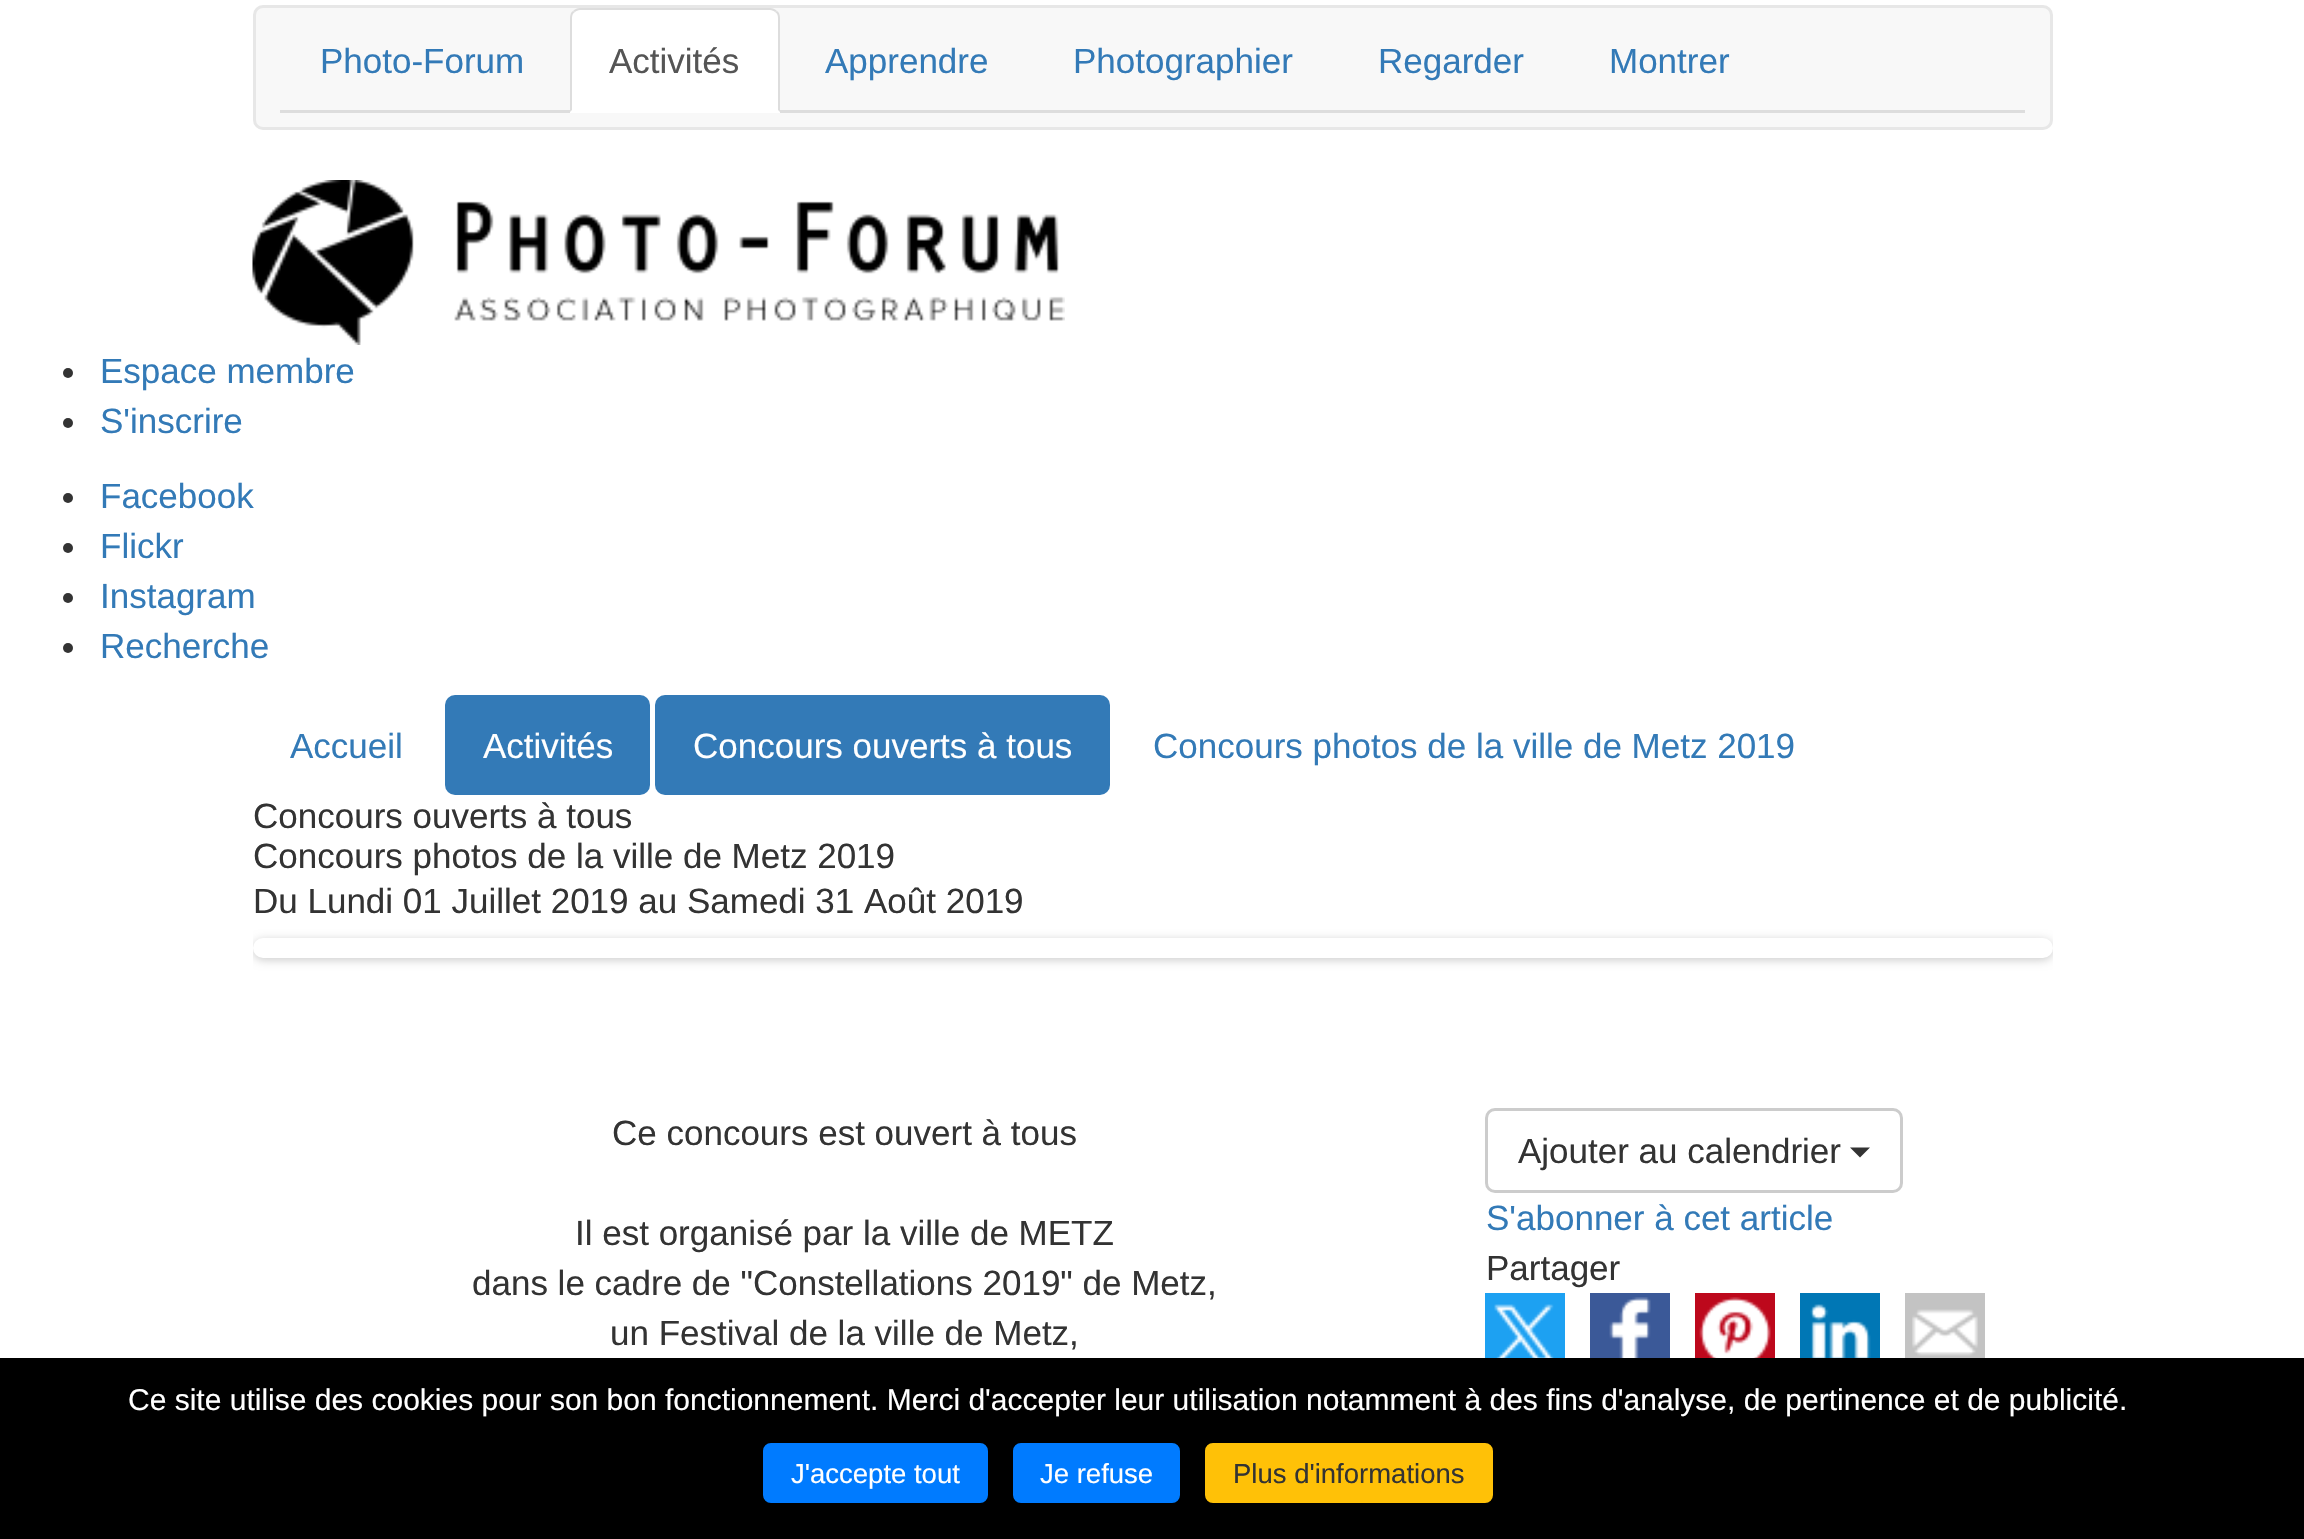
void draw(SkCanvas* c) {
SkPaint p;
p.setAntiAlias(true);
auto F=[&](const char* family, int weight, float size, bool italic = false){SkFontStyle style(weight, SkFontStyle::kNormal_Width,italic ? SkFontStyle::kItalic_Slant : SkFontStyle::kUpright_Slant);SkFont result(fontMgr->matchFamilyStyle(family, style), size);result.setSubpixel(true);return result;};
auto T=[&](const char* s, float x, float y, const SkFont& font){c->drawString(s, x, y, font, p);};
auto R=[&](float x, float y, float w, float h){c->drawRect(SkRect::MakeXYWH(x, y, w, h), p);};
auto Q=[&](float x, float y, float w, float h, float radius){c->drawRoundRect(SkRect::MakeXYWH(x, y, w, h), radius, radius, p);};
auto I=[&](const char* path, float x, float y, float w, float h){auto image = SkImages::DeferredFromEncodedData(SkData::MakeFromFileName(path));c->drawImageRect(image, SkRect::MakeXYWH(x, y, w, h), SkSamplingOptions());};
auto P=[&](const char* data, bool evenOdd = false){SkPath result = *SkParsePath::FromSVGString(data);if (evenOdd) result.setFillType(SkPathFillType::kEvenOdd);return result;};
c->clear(0xffffffff);
p.setColor(0xfff8f8f8);
c->drawRoundRect(SkRect::MakeXYWH(254.5,6.5,1797,122),8.5,8.5,p);
p.setStroke(true);
p.setStrokeWidth(3);
p.setColor(0xffe7e7e7);
c->drawRoundRect(SkRect::MakeXYWH(254.5,6.5,1797,122),8.5,8.5,p);
p.setStroke(false);
p.setColor(0xffdddddd);
R(280,110,1745,3);
auto f1 = F("Liberation Sans",400,35);
p.setColor(0xff337ab7);
T("Photo-Forum",320,73,f1);
p.setColor(0xffffffff);
c->drawPath(P("M580 8h190c5.5 0 10 4.5 10 10v95h-210v-95c0-5.5 4.5-10 10-10z"),p);
p.setColor(0xffdddddd);
c->drawPath(P("M580 8c-3 0-5 1-7 3l2 1c1-1 3-2 5-2h190c2 0 4 1 5 2l2-1c-2-2-4-3-7-3z"),p);
c->drawPath(P("M777 11c2 1 3 4 3 7v94l-2-2v-92c0-3-1-5-3-6z"),p);
c->drawPath(P("M570 18v94l2-2v-92c0-3 1-5 3-6l-2-1c-2 1-3 4-3 7z"),p);
p.setColor(0xff555555);
T("Activités",609,73,f1);
p.setColor(0xff337ab7);
T("Apprendre",825,73,f1);
T("Photographier",1073,73,f1);
T("Regarder",1378,73,f1);
T("Montrer",1609,73,f1);
I("1.png",252,180,813,165);
p.setColor(0xff333333);
c->drawCircle(68,373,5,p);
p.setColor(0xff337ab7);
T("Espace membre",100,383,f1);
p.setColor(0xff333333);
c->drawCircle(68,423,5,p);
p.setColor(0xff337ab7);
T("S'inscrire",100,433,f1);
p.setColor(0xff333333);
c->drawCircle(68,498,5,p);
p.setColor(0xff337ab7);
T("Facebook",100,508,f1);
p.setColor(0xff333333);
c->drawCircle(68,548,5,p);
p.setColor(0xff337ab7);
T("Flickr",100,558,f1);
p.setColor(0xff333333);
c->drawCircle(68,598,5,p);
p.setColor(0xff337ab7);
T("Instagram",100,608,f1);
p.setColor(0xff333333);
c->drawCircle(68,648,5,p);
p.setColor(0xff337ab7);
T("Recherche",100,658,f1);
T("Accueil",290,758,f1);
Q(445,695,205,100,10);
p.setColor(0xffffffff);
T("Activités",483,758,f1);
p.setColor(0xff337ab7);
Q(655,695,455,100,10);
p.setColor(0xffffffff);
T("Concours ouverts à tous",693,758,f1);
p.setColor(0xff337ab7);
T("Concours photos de la ville de Metz 2019",1153,758,f1);
p.setColor(0xff333333);
T("Concours ouverts à tous",253,828,f1);
T("Concours photos de la ville de Metz 2019",253,868,f1);
T("Du Lundi 01 Juillet 2019 au Samedi 31 Août 2019",253,913,f1);
c->save();
c->clipRect(SkRect::MakeXYWH(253,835,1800,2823));
p.setColor(0x33000000);
p.setMaskFilter(SkMaskFilter::MakeBlur(kNormal_SkBlurStyle, 5));
c->drawRoundRect(SkRect::MakeXYWH(253,940,1800,20),10,10,p);
p.setMaskFilter(nullptr);
c->restore();
p.setColor(0xffffffff);
Q(253,938,1800,20,10);
p.setColor(0xff333333);
T("Ce concours est ouvert à tous",612,1145,f1);
T("Il est organisé par la ville de METZ",575,1245,f1);
T("dans le cadre de \"Constellations 2019\" de Metz,",472,1295,f1);
T("un Festival de la ville de Metz,",610,1345,f1);
p.setStroke(true);
p.setColor(0xffcccccc);
c->drawRoundRect(SkRect::MakeXYWH(1486.5,1109.5,415,82),8.5,8.5,p);
p.setStroke(false);
p.setColor(0xff333333);
T("Ajouter au calendrier",1518,1163,f1);
c->drawPath(P("M1850 1147.5h20l-10 10z"),p);
p.setColor(0xff337ab7);
T("S'abonner à cet article",1486,1230,f1);
p.setColor(0xff333333);
T("Partager",1486,1280,f1);
p.setColor(0xff1da1f2);
R(1485,1293,80,65);
I("2.png",1494,1304,60,54);
p.setColor(0xff3b5998);
R(1590,1293,80,65);
I("3.png",1609,1297,42,61);
p.setColor(0xffbd081c);
R(1695,1293,80,65);
I("4.png",1699,1297,72,61);
p.setColor(0xff0077b5);
R(1800,1293,80,65);
I("5.png",1810,1304,61,54);
p.setColor(0xffc3c3c3);
R(1905,1293,80,65);
I("6.png",1912,1309,66,47);
p.setColor(0xff000000);
R(0,1358,2304,181);
auto f2 = F("Liberation Sans",400,30);
p.setColor(0xffffffff);
T("Ce site utilise des cookies pour son bon fonctionnement. Merci d'accepter leur utilisation notamment à des fins d'analyse, de pertinence et de publicité.",128,1410,f2);
p.setColor(0xff007bff);
c->drawRoundRect(SkRect::MakeXYWH(764.5,1444.5,222,57),6.5,6.5,p);
p.setStroke(true);
c->drawRoundRect(SkRect::MakeXYWH(764.5,1444.5,222,57),6.5,6.5,p);
auto f3 = F("Liberation Sans",400,27.5);
p.setStroke(false);
p.setColor(0xffffffff);
T("J'accepte tout",791,1483,f3);
p.setColor(0xff007bff);
c->drawRoundRect(SkRect::MakeXYWH(1014.5,1444.5,164,57),6.5,6.5,p);
p.setStroke(true);
c->drawRoundRect(SkRect::MakeXYWH(1014.5,1444.5,164,57),6.5,6.5,p);
p.setStroke(false);
p.setColor(0xffffffff);
T("Je refuse",1040,1483,f3);
p.setColor(0xffffc107);
c->drawRoundRect(SkRect::MakeXYWH(1206.5,1444.5,285,57),6.5,6.5,p);
p.setStroke(true);
c->drawRoundRect(SkRect::MakeXYWH(1206.5,1444.5,285,57),6.5,6.5,p);
p.setStroke(false);
p.setColor(0xff333333);
T("Plus d'informations",1233,1483,f3);
}
